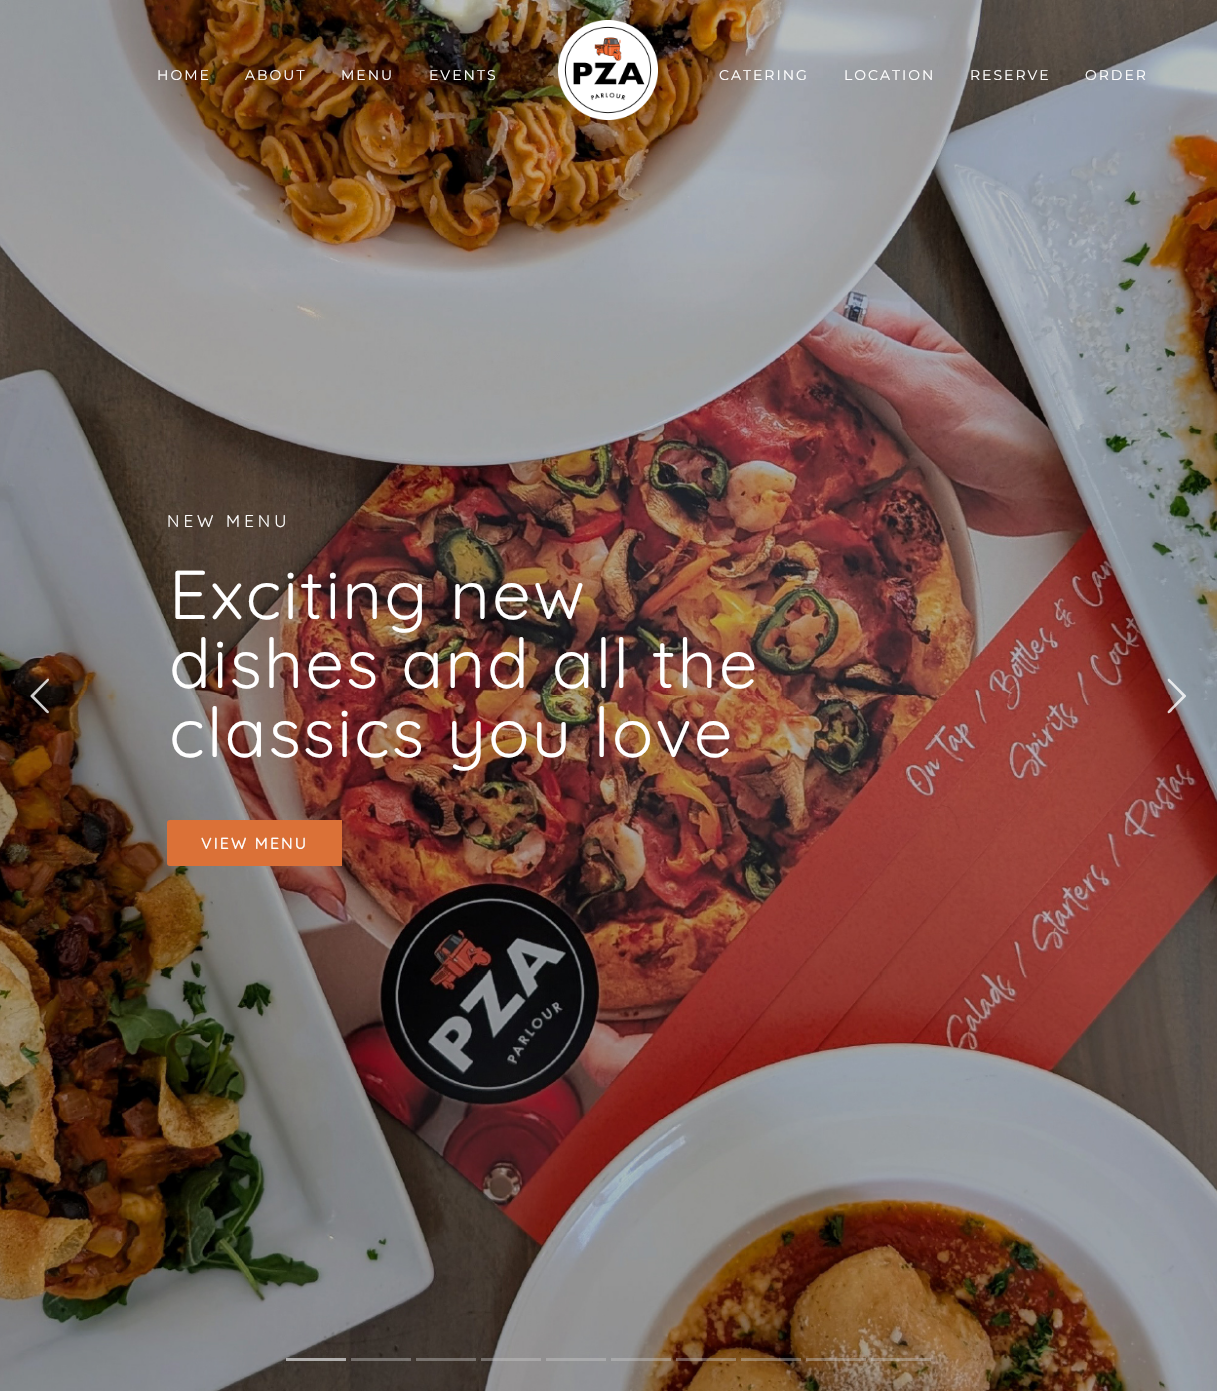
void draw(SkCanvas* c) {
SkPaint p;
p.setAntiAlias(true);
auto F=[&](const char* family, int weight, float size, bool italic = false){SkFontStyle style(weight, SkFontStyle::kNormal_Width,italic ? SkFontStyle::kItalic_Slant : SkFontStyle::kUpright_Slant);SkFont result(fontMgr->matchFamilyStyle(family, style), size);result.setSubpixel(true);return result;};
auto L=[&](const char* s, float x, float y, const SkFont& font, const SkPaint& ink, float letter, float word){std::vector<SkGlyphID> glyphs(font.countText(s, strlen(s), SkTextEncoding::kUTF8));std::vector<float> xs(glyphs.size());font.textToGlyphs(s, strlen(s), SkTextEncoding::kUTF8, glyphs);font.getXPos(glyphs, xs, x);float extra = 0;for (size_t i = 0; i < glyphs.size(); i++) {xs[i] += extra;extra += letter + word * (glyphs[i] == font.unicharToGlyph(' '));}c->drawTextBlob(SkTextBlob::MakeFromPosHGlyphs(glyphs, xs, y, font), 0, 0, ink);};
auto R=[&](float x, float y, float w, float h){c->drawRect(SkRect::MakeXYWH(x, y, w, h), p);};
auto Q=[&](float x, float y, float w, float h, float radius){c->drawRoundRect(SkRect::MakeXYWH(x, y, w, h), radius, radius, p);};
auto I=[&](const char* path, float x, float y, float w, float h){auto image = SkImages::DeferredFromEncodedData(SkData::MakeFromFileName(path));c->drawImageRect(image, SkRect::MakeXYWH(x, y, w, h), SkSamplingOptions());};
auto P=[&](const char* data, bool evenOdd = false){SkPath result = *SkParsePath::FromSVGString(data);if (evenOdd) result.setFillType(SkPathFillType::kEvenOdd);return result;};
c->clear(0xffffffff);
I("2.png",0,0,1217,1391);
auto f1 = F("Montserrat",400,14);
p.setColor(0xffffffff);
L("HOME",157,80,f1,p,2,0);
L("ABOUT",245,80,f1,p,2,0);
L("MENU",341,80,f1,p,2,0);
L("EVENTS",429,80,f1,p,2,0);
I("1.png",558,20,100,100);
L("CATERING",719,80,f1,p,2,0);
L("LOCATION",844,80,f1,p,2,0);
L("RESERVE",970,80,f1,p,2,0);
L("ORDER",1085,80,f1,p,2,0);
p.setColor(0xccffffff);
c->drawPath(P("M48.5 711l.5 1c-1 3.5-4.5-1.5-5-2l-13.5-13.5v-1l16.5-16.5l1-.5c3 1-1.5 4.5-2 5l-12 12.5z"),p);
auto f2 = F("Quicksand",400,17);
p.setColor(0xffffffff);
L("NEW MENU",167,527,f2,p,4,0);
auto f3 = F("Quicksand",400,69);
L("Exciting new",169,619,f3,p,2,0);
L("dishes and all the",169,688,f3,p,2,0);
L("classics you love",169,757,f3,p,2,0);
p.setColor(0xffdb7137);
Q(167,820,175,46,3);
auto f4 = F("Quicksand",500,16);
p.setColor(0xffffffff);
L("VIEW MENU",201,849,f4,p,2,0);
p.setColor(0xffdb7137);
R(339,820,3,46);
p.setColor(0xccffffff);
c->drawPath(P("M1168 711l14.5-15l-12-12.5c-.5-.5-5-4-1.5-5l.5 .5l16.5 16.5v1l-13.5 13.5c0 .5-4 5.5-5 2z"),p);
p.setColor(0xcccccccc);
R(286,1358,60,3);
p.setColor(0x66cccccc);
R(351,1358,60,3);
R(416,1358,60,3);
R(481,1358,60,3);
R(546,1358,60,3);
R(611,1358,60,3);
R(676,1358,60,3);
R(741,1358,60,3);
R(806,1358,60,3);
R(871,1358,60,3);
}
